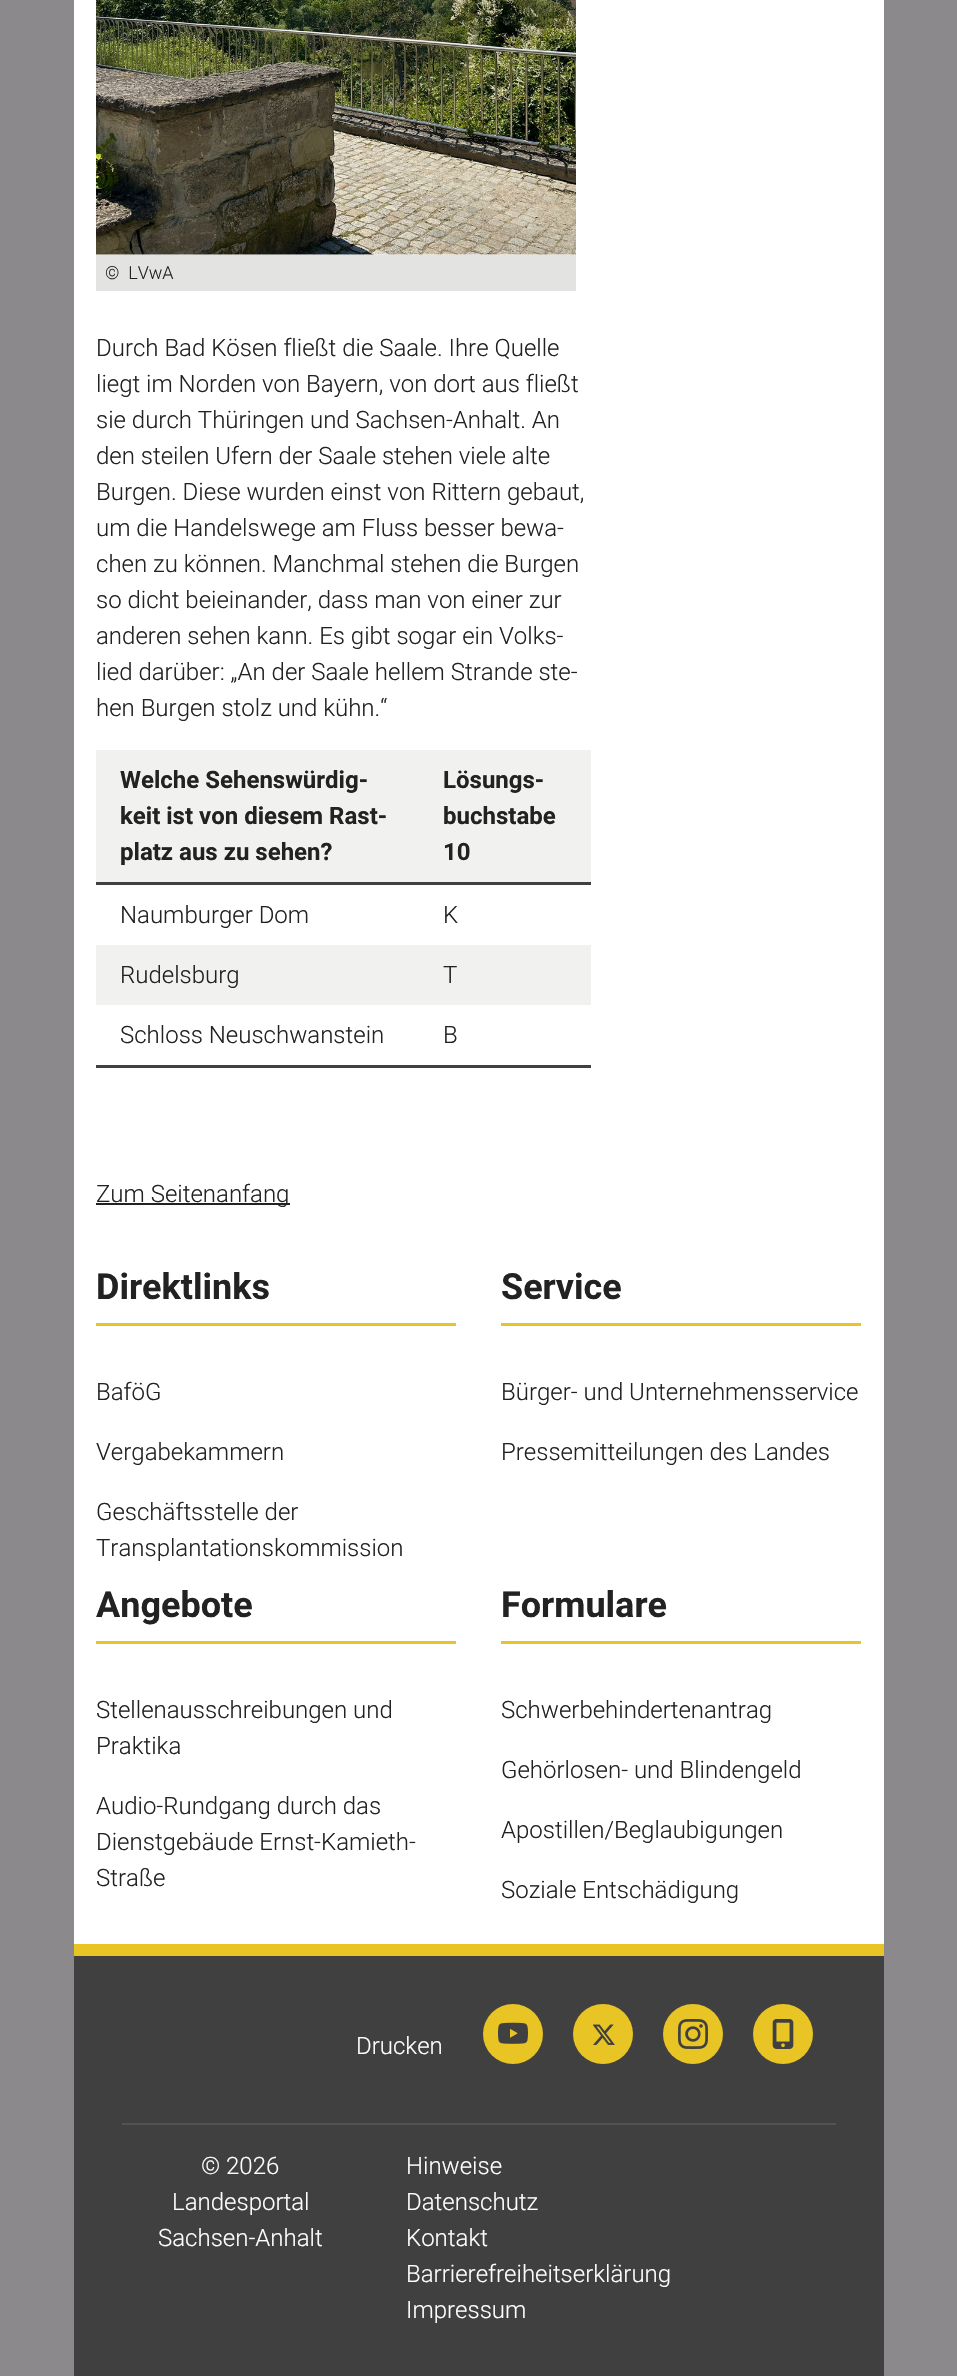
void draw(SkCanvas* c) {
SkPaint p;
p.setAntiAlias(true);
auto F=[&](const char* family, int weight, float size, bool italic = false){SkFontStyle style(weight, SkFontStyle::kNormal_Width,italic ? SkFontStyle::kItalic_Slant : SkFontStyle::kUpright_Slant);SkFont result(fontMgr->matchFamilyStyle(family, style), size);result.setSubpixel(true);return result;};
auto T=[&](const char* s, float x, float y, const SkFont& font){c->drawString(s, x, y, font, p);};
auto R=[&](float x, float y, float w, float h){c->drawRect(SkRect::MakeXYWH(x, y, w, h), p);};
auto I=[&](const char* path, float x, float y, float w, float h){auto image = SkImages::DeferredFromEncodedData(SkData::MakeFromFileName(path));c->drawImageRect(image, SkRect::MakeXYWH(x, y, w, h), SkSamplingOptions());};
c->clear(0xff8c898c);
p.setColor(0xffffffff);
R(74,0,810,1944);
I("1.png",96,0,480,255);
p.setColor(0xffe3e3e1);
R(96,255,480,36);
auto f1 = F("Roboto",300,18);
p.setColor(0xff222222);
T("©  LVwA",105,279,f1);
auto f2 = F("Roboto",300,24);
T("Durch Bad Kösen fließt die Saale. Ihre Quelle",96,356,f2);
T("liegt im Norden von Bayern, von dort aus fließt",96,392,f2);
T("sie durch Thüringen und Sachsen-Anhalt. An",96,428,f2);
T("den steilen Ufern der Saale stehen viele alte",96,464,f2);
T("Burgen. Diese wurden einst von Rittern gebaut,",96,500,f2);
T("um die Handelswege am Fluss besser bewa-",96,536,f2);
T("chen zu können. Manchmal stehen die Burgen",96,572,f2);
T("so dicht beieinander, dass man von einer zur",96,608,f2);
T("anderen sehen kann. Es gibt sogar ein Volks-",96,644,f2);
T("lied darüber: „An der Saale hellem Strande ste-",96,680,f2);
T("hen Burgen stolz und kühn.“",96,716,f2);
p.setColor(0xff404040);
R(96,1065,495,3);
p.setColor(0xfff1f1f0);
R(96,750,495,132);
p.setColor(0xff404040);
R(96,882,495,3);
auto f3 = F("Roboto",700,24);
p.setColor(0xff222222);
T("Welche Sehenswürdig-",120,788,f3);
T("keit ist von diesem Rast-",120,824,f3);
T("platz aus zu sehen?",120,860,f3);
T("Lösungs-",443,788,f3);
T("buchstabe",443,824,f3);
T("10",443,860,f3);
T("Naumburger Dom",120,923,f2);
T("K",443,923,f2);
p.setColor(0xfff1f1f0);
R(96,945,495,60);
p.setColor(0xff222222);
T("Rudelsburg",120,983,f2);
T("T",443,983,f2);
T("Schloss Neuschwanstein",120,1043,f2);
T("B",443,1043,f2);
R(96,1203,194,2);
T("Zum Seitenanfang",96,1202,f2);
p.setColor(0xffe8c425);
R(96,1323,360,3);
auto f4 = F("Roboto",700,36);
p.setColor(0xff222222);
T("Direktlinks",96,1299,f4);
T("BaföG",96,1400,f2);
T("Vergabekammern",96,1460,f2);
T("Geschäftsstelle der",96,1520,f2);
T("Transplantationskommission",96,1556,f2);
p.setColor(0xffe8c425);
R(501,1323,360,3);
p.setColor(0xff222222);
T("Service",501,1299,f4);
T("Bürger- und Unternehmensservice",501,1400,f2);
T("Pressemitteilungen des Landes",501,1460,f2);
p.setColor(0xffe8c425);
R(96,1641,360,3);
p.setColor(0xff222222);
T("Angebote",96,1617,f4);
T("Stellenausschreibungen und",96,1718,f2);
T("Praktika",96,1754,f2);
T("Audio-Rundgang durch das",96,1814,f2);
T("Dienstgebäude Ernst-Kamieth-",96,1850,f2);
T("Straße",96,1886,f2);
p.setColor(0xffe8c425);
R(501,1641,360,3);
p.setColor(0xff222222);
T("Formulare",501,1617,f4);
T("Schwerbehindertenantrag",501,1718,f2);
T("Gehörlosen- und Blindengeld",501,1778,f2);
T("Apostillen/Beglaubigungen",501,1838,f2);
T("Soziale Entschädigung",501,1898,f2);
p.setColor(0xff404040);
R(74,1956,810,420);
p.setColor(0xffe8c425);
R(74,1944,810,12);
p.setColor(0xff535353);
R(122,2123,714,2);
p.setColor(0xffffffff);
T("Drucken",356,2054,f2);
p.setColor(0xffe8c425);
c->drawCircle(513,2034,30,p);
I("2.png",498,2022,30,22);
c->drawCircle(603,2034,30,p);
I("3.png",593,2024,22,21);
c->drawCircle(693,2034,30,p);
I("4.png",678,2019,30,30);
c->drawCircle(783,2034,30,p);
I("5.png",772,2019,22,30);
p.setColor(0xffffffff);
T("© 2026",201,2174,f2);
T("Landesportal",172,2210,f2);
T("Sachsen-Anhalt",158,2246,f2);
T("Hinweise",406,2174,f2);
T("Datenschutz",406,2210,f2);
T("Kontakt",406,2246,f2);
T("Barrierefreiheitserklärung",406,2282,f2);
T("Impressum",406,2318,f2);
}
